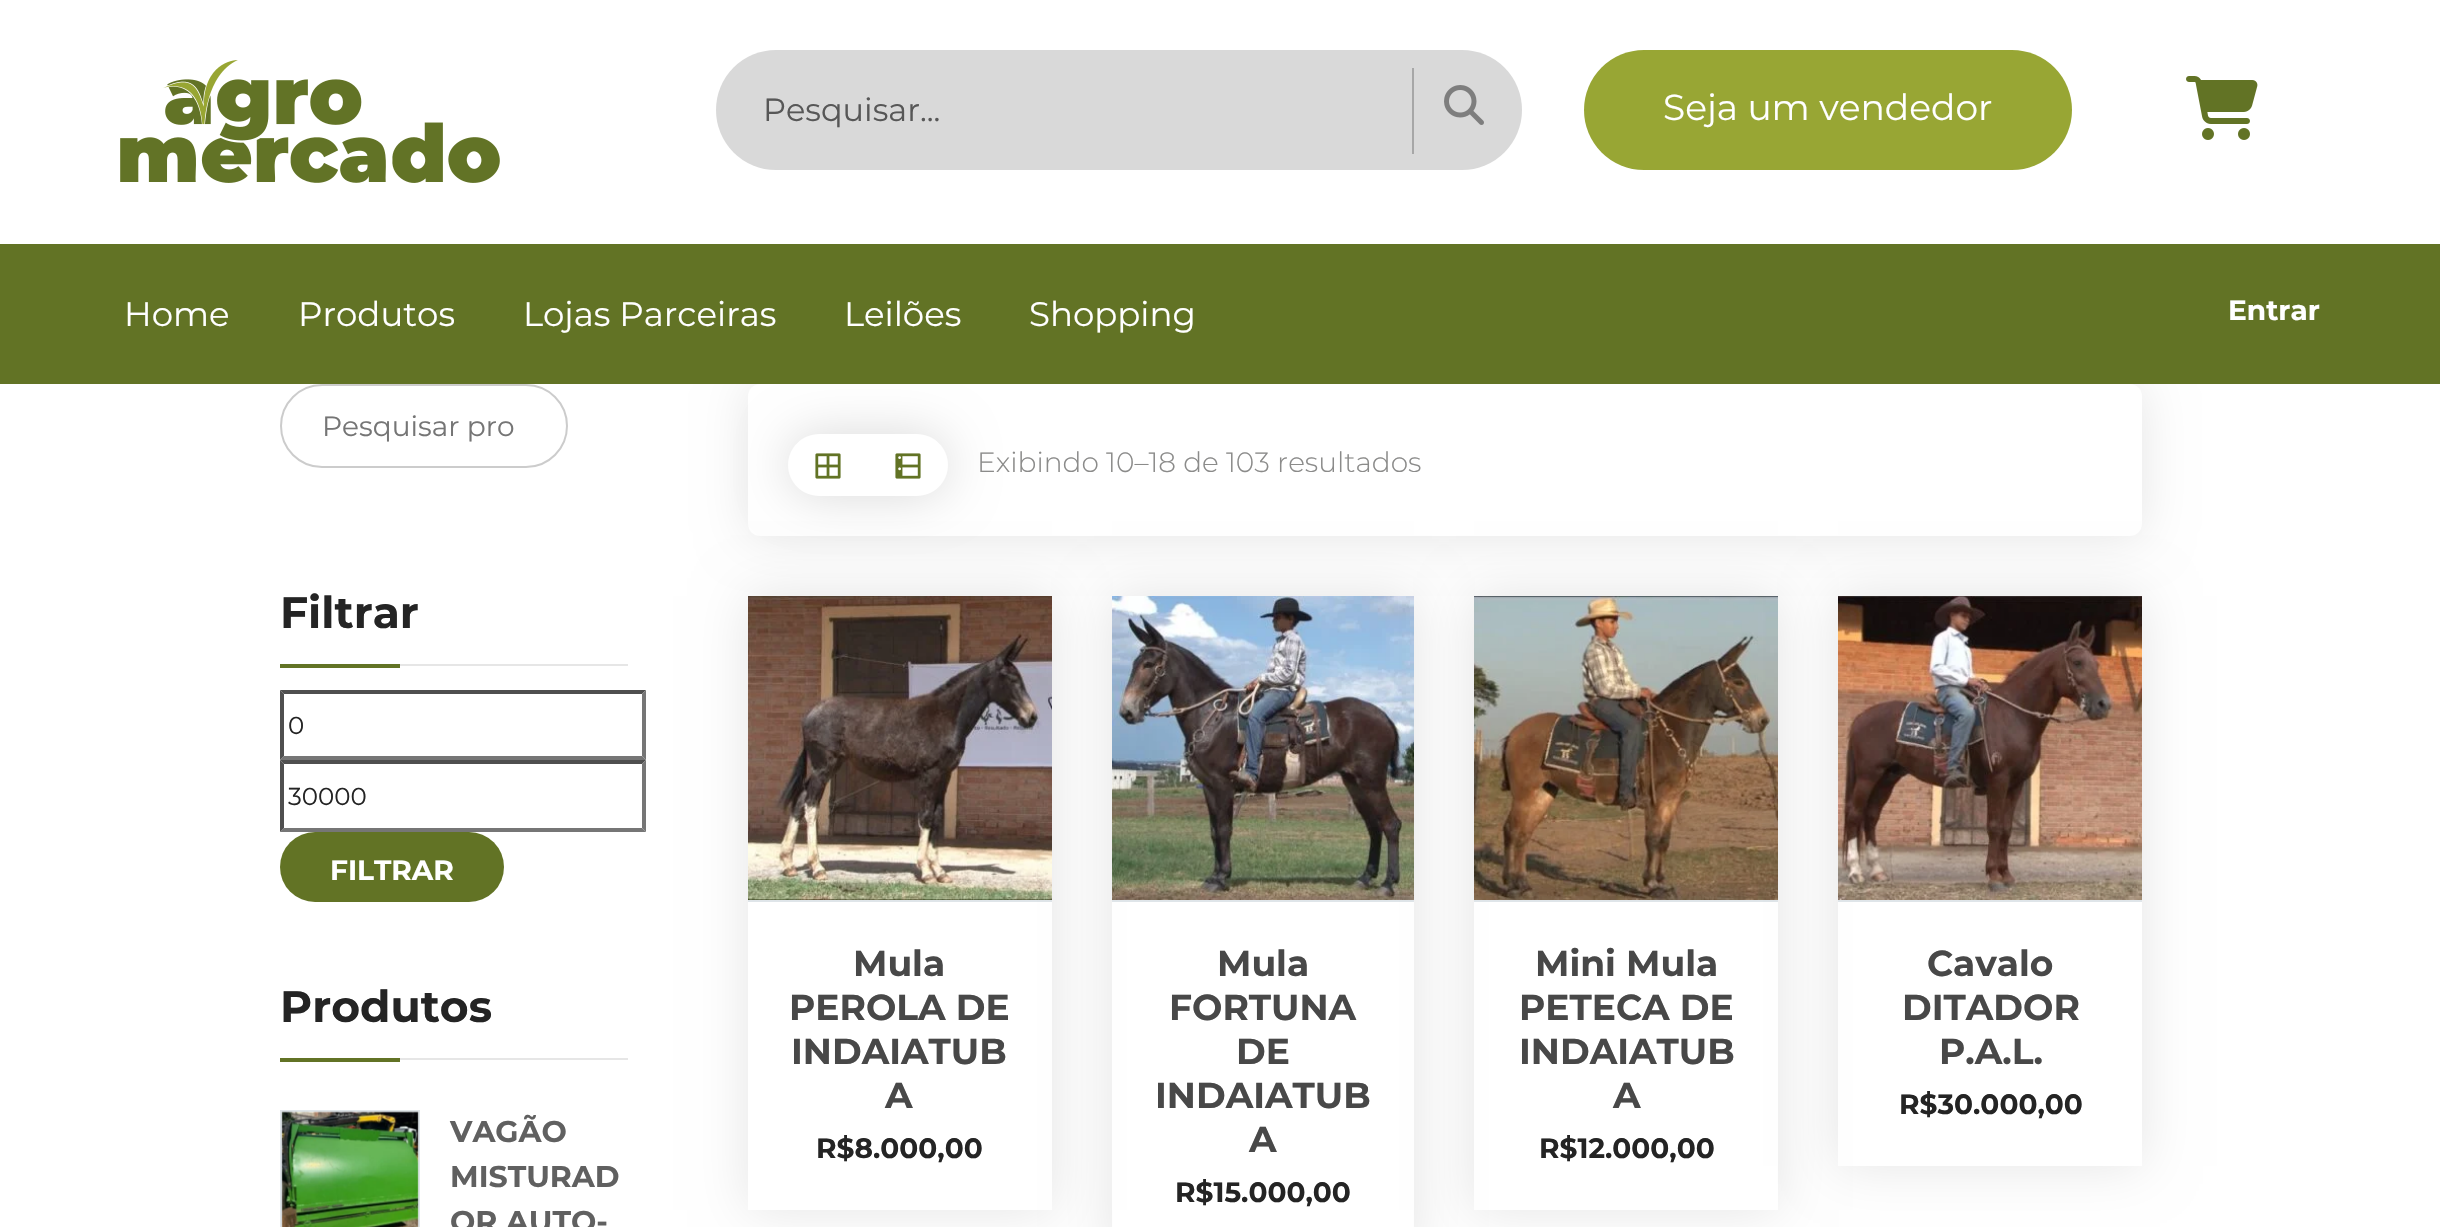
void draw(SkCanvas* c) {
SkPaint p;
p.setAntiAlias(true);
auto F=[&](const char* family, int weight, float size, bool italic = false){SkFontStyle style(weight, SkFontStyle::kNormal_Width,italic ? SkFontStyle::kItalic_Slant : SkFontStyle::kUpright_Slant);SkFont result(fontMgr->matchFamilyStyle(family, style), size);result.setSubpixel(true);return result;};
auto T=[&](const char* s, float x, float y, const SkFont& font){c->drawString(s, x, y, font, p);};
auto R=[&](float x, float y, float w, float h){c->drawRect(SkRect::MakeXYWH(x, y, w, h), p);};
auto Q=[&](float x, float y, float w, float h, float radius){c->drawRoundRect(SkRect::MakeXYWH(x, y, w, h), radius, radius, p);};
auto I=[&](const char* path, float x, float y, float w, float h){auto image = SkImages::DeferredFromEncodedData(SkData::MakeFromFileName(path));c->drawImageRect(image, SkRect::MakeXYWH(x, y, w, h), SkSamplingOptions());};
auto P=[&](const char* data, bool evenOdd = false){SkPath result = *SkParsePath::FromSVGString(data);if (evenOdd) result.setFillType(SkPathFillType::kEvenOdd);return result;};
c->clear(0xffffffff);
I("1.png",120,60,380,123);
p.setColor(0xffd9d9d9);
Q(716,50,806,120,60);
auto f1 = F("Montserrat",400,32);
p.setColor(0xff575757);
T("Pesquisar...",763,121,f1);
p.setColor(0xffa7a7a7);
R(1412,68,2,86);
I("2.png",1444,85,40,40);
p.setColor(0xff98a634);
Q(1584,50,488,120,60);
auto f2 = F("Montserrat",400,36);
p.setColor(0xffffffff);
T("Seja um vendedor",1663,120,f2);
I("3.png",2186,76,72,64);
p.setColor(0x1a000000);
p.setMaskFilter(SkMaskFilter::MakeBlur(kNormal_SkBlurStyle, 25));
c->drawRoundRect(SkRect::MakeXYWH(748,384,1394,152),12,12,p);
p.setMaskFilter(nullptr);
p.setColor(0xffffffff);
Q(748,384,1394,152,12);
p.setColor(0x26000000);
p.setMaskFilter(SkMaskFilter::MakeBlur(kNormal_SkBlurStyle, 25));
c->drawRoundRect(SkRect::MakeXYWH(788,434,160,62),31,31,p);
p.setMaskFilter(nullptr);
p.setColor(0xff627325);
R(0,244,2440,140);
auto f3 = F("Montserrat",400,34);
p.setColor(0xffffffff);
T("Home",124,326,f3);
T("Produtos",298,326,f3);
T("Lojas Parceiras",523,326,f3);
T("Leilões",844,326,f3);
T("Shopping",1029,326,f3);
auto f4 = F("Montserrat",700,28);
T("Entrar",2228,320,f4);
p.setStroke(true);
p.setStrokeWidth(2);
p.setColor(0xffcccccc);
c->drawRoundRect(SkRect::MakeXYWH(281,385,286,82),41,41,p);
auto f5 = F("Montserrat",400,28);
p.setStroke(false);
p.setColor(0xff757575);
T("Pesquisar pro",322,436,f5);
p.setColor(0xffe6e6e6);
R(400,664,228,2);
auto f6 = F("Montserrat",700,44);
p.setColor(0xff242424);
T("Filtrar",280,628,f6);
p.setColor(0xff627325);
R(280,664,120,4);
p.setColor(0xff4f4f4f);
c->drawPath(P("M280 690h366l-4 4h-358z"),p);
p.setColor(0xff767676);
c->drawPath(P("M646 690v70l-4-4v-62z"),p);
c->drawPath(P("M646 760h-366l4-4h358z"),p);
p.setColor(0xff4f4f4f);
c->drawPath(P("M280 760v-70l4 4v62z"),p);
auto f7 = F("Montserrat",400,24.5);
p.setColor(0xff242424);
T("0",288,734,f7);
p.setColor(0xff4f4f4f);
c->drawPath(P("M280 760h366l-4 4h-358z"),p);
p.setColor(0xff767676);
c->drawPath(P("M646 760v72l-4-4v-64z"),p);
c->drawPath(P("M646 832h-366l4-4h358z"),p);
p.setColor(0xff4f4f4f);
c->drawPath(P("M280 832v-72l4 4v64z"),p);
p.setColor(0xff242424);
T("30000",288,805,f7);
p.setColor(0xff627325);
Q(280,832,224,70,35);
p.setColor(0xffffffff);
T("FILTRAR",330,880,f4);
p.setColor(0xffe6e6e6);
R(400,1058,228,2);
p.setColor(0xff242424);
T("Produtos",280,1022,f6);
p.setColor(0xff627325);
R(280,1058,120,4);
p.setStroke(true);
p.setColor(0xffdfe5e9);
c->drawRect(SkRect::MakeXYWH(281,1111,138,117),p);
I("4.png",281,1111,138,116);
auto f8 = F("Montserrat",700,30);
p.setStroke(false);
p.setColor(0xff606060);
T("VAGÃO",450,1142,f8);
T("MISTURAD",450,1187,f8);
T("OR AUTO-",450,1232,f8);
p.setColor(0xffffffff);
c->drawPath(P("M819 434h49v62h-49c-17 0-31-14-31-31c0-17 14-31 31-31z"),p);
I("5.png",815,453,26,26);
c->drawPath(P("M868 434h49c17 0 31 14 31 31c0 17-14 31-31 31h-49z"),p);
I("6.png",895,453,26,26);
auto f9 = F("Montserrat",300,28);
p.setColor(0xff8b8b8a);
T("Exibindo 10–18 de 103 resultados",977,472,f9);
c->save();
c->clipPath(P("M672 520h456v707h-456zm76 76h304v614h-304z",true),true);
p.setColor(0x1a000000);
p.setMaskFilter(SkMaskFilter::MakeBlur(kNormal_SkBlurStyle, 25));
c->drawRect(SkRect::MakeXYWH(748,596,304,614),p);
p.setMaskFilter(nullptr);
c->restore();
I("7.png",748,596,304,304);
p.setColor(0xffdfe5e9);
R(748,900,304,2);
auto f10 = F("Montserrat",700,36);
p.setColor(0xff484848);
T("Mula",853,976,f10);
T("PEROLA DE",789,1020,f10);
T("INDAIATUB",791,1064,f10);
T("A",885,1108,f10);
p.setColor(0xff242424);
T("R$8.000,00",816,1158,f4);
c->save();
c->clipPath(P("M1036 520h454v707h-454zm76 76h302v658h-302z",true),true);
p.setColor(0x1a000000);
p.setMaskFilter(SkMaskFilter::MakeBlur(kNormal_SkBlurStyle, 25));
c->drawRect(SkRect::MakeXYWH(1112,596,302,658),p);
p.setMaskFilter(nullptr);
c->restore();
I("8.png",1112,596,302,304);
p.setColor(0xffdfe5e9);
R(1112,900,302,2);
p.setColor(0xff484848);
T("Mula",1217,976,f10);
T("FORTUNA",1169,1020,f10);
T("DE",1236,1064,f10);
T("INDAIATUB",1155,1108,f10);
T("A",1249,1152,f10);
p.setColor(0xff242424);
T("R$15.000,00",1175,1202,f4);
c->save();
c->clipPath(P("M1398 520h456v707h-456zm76 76h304v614h-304z",true),true);
p.setColor(0x1a000000);
p.setMaskFilter(SkMaskFilter::MakeBlur(kNormal_SkBlurStyle, 25));
c->drawRect(SkRect::MakeXYWH(1474,596,304,614),p);
p.setMaskFilter(nullptr);
c->restore();
I("9.png",1474,596,304,304);
p.setColor(0xffdfe5e9);
R(1474,900,304,2);
p.setColor(0xff484848);
T("Mini Mula",1535,976,f10);
T("PETECA DE",1519,1020,f10);
T("INDAIATUB",1519,1064,f10);
T("A",1613,1108,f10);
p.setColor(0xff242424);
T("R$12.000,00",1539,1158,f4);
c->save();
c->clipPath(P("M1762 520h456v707h-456zm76 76h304v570h-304z",true),true);
p.setColor(0x1a000000);
p.setMaskFilter(SkMaskFilter::MakeBlur(kNormal_SkBlurStyle, 25));
c->drawRect(SkRect::MakeXYWH(1838,596,304,570),p);
p.setMaskFilter(nullptr);
c->restore();
I("10.png",1838,596,304,304);
p.setColor(0xffdfe5e9);
R(1838,900,304,2);
p.setColor(0xff484848);
T("Cavalo",1927,976,f10);
T("DITADOR",1902,1020,f10);
T("P.A.L.",1939,1064,f10);
p.setColor(0xff242424);
T("R$30.000,00",1899,1114,f4);
}
